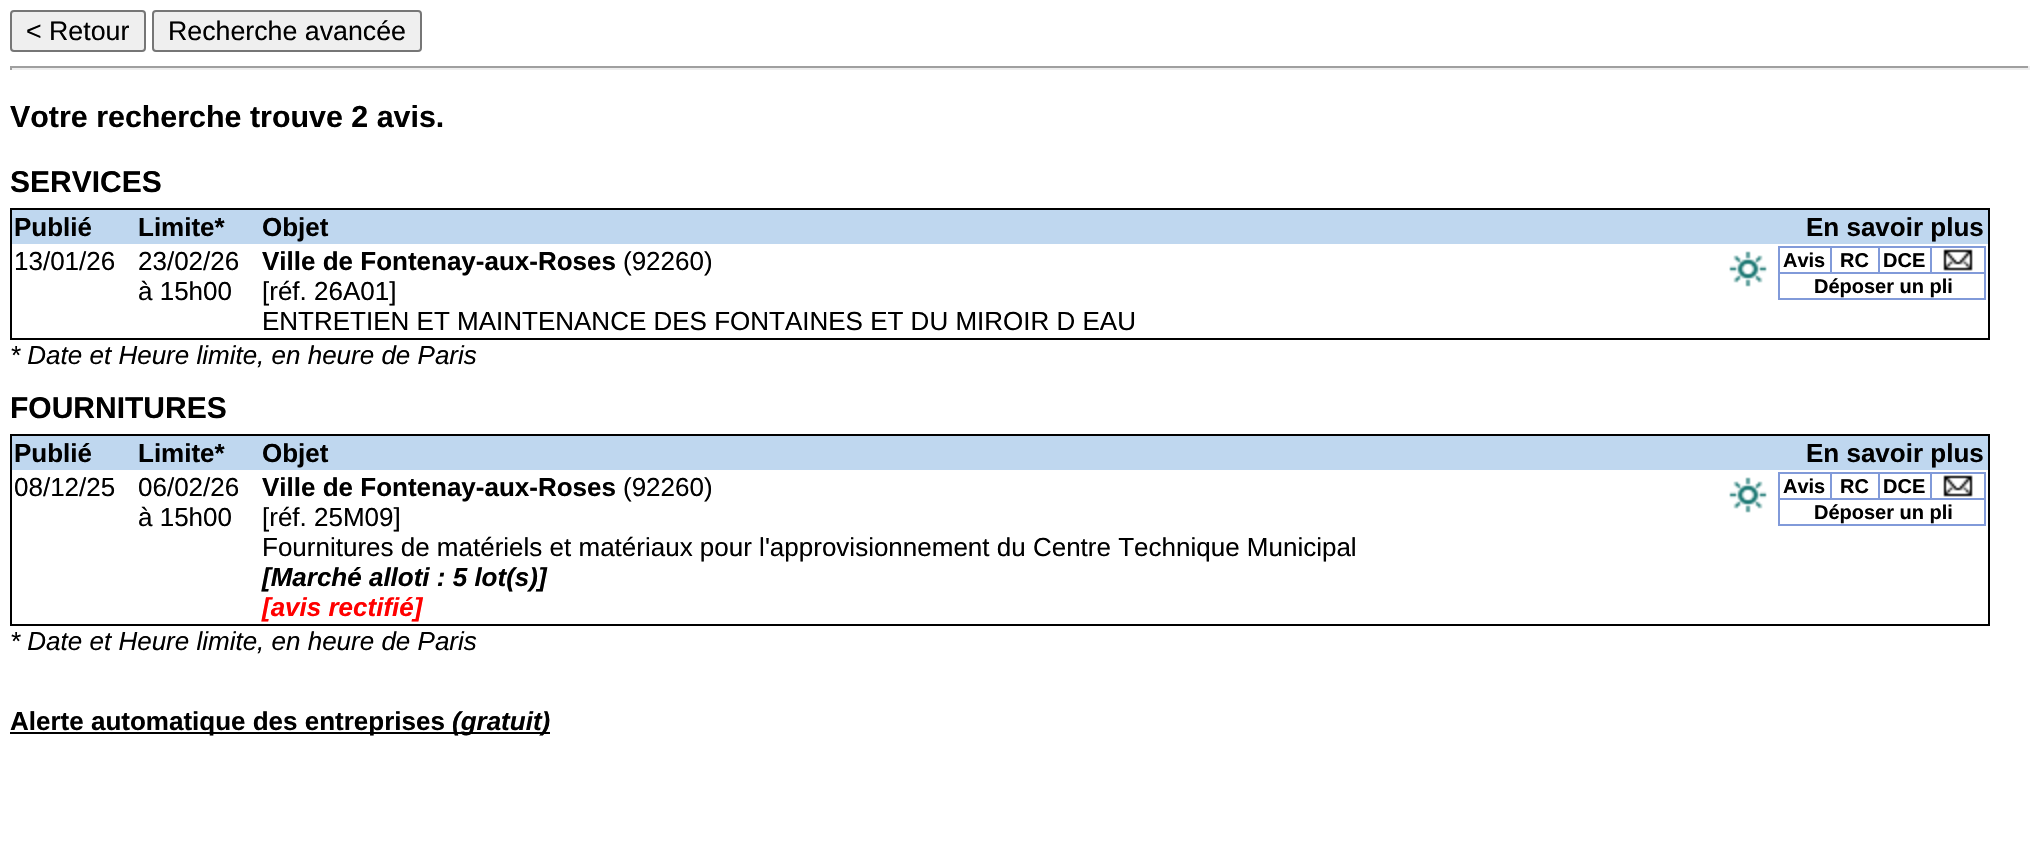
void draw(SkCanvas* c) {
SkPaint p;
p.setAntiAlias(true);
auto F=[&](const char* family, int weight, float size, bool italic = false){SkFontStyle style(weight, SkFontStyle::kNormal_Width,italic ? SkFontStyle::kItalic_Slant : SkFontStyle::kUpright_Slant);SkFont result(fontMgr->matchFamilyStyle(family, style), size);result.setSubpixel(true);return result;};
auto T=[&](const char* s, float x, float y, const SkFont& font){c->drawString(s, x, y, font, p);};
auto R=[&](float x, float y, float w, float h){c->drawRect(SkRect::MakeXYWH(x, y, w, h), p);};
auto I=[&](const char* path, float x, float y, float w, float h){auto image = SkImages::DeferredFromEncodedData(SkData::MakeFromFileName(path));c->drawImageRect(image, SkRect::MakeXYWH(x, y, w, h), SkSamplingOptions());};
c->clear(0xffffffff);
p.setColor(0xffefefef);
c->drawRoundRect(SkRect::MakeXYWH(11,11,134,40),3,3,p);
p.setStroke(true);
p.setStrokeWidth(2);
p.setColor(0xff767676);
c->drawRoundRect(SkRect::MakeXYWH(11,11,134,40),3,3,p);
auto f1 = F("Liberation Sans",400,26.75);
p.setStroke(false);
p.setColor(0xff000000);
T("< Retour",26,40,f1);
p.setColor(0xffefefef);
c->drawRoundRect(SkRect::MakeXYWH(153,11,268,40),3,3,p);
p.setStroke(true);
p.setColor(0xff767676);
c->drawRoundRect(SkRect::MakeXYWH(153,11,268,40),3,3,p);
p.setStroke(false);
p.setColor(0xff000000);
T("Recherche avancée",168,40,f1);
p.setColor(0xff9f9f9f);
R(10,66,2020,2);
p.setColor(0xffeeeeee);
R(2028,66,2,4);
R(10,68,2020,2);
p.setColor(0xff9f9f9f);
R(10,66,2,4);
auto f2 = F("Liberation Sans",700,30.4);
p.setColor(0xff000000);
T("Votre recherche trouve 2 avis.",10,127,f2);
auto f3 = F("Liberation Sans",700,30);
T("SERVICES",10,192,f3);
p.setStroke(true);
c->drawRect(SkRect::MakeXYWH(11,209,1978,130),p);
p.setStroke(false);
p.setColor(0xffbfd7ef);
R(12,210,1976,34);
auto f4 = F("Liberation Sans",700,26);
p.setColor(0xff000000);
T("Publié",14,236,f4);
T("Limite*",138,236,f4);
T("Objet",262,236,f4);
T("En savoir plus",1806,236,f4);
auto f5 = F("Liberation Sans",400,26);
T("13/01/26",14,270,f5);
T("23/02/26",138,270,f5);
T("à 15h00",138,300,f5);
T("Ville de Fontenay-aux-Roses",262,270,f4);
T("(92260)",623,270,f5);
I("1.png",1729,251,38,36);
p.setColor(0xff819ad9);
R(1778,246,208,2);
R(1778,298,208,2);
R(1778,246,2,54);
R(1830,248,2,24);
auto f6 = F("Liberation Sans",700,20);
p.setColor(0xff000000);
T("Avis",1783,267,f6);
p.setColor(0xff819ad9);
R(1878,248,2,24);
p.setColor(0xff000000);
T("RC",1840,267,f6);
p.setColor(0xff819ad9);
R(1930,248,2,24);
p.setColor(0xff000000);
T("DCE",1883,267,f6);
p.setColor(0xff819ad9);
R(1984,248,2,24);
I("2.png",1943,249,30,22);
R(1780,272,206,2);
R(1984,272,2,26);
p.setColor(0xff000000);
T("Déposer un pli",1814,293,f6);
T("[réf. 26A01]",262,300,f5);
T("ENTRETIEN ET MAINTENANCE DES FONTAINES ET DU MIROIR D EAU",262,330,f5);
auto f7 = F("Liberation Sans",400,26,true);
T("* Date et Heure limite, en heure de Paris",10,364,f7);
T("FOURNITURES",10,418,f3);
p.setStroke(true);
c->drawRect(SkRect::MakeXYWH(11,435,1978,190),p);
p.setStroke(false);
p.setColor(0xffbfd7ef);
R(12,436,1976,34);
p.setColor(0xff000000);
T("Publié",14,462,f4);
T("Limite*",138,462,f4);
T("Objet",262,462,f4);
T("En savoir plus",1806,462,f4);
T("08/12/25",14,496,f5);
T("06/02/26",138,496,f5);
T("à 15h00",138,526,f5);
T("Ville de Fontenay-aux-Roses",262,496,f4);
T("(92260)",623,496,f5);
I("1.png",1729,477,38,36);
p.setColor(0xff819ad9);
R(1778,472,208,2);
R(1778,524,208,2);
R(1778,472,2,54);
R(1830,474,2,24);
p.setColor(0xff000000);
T("Avis",1783,493,f6);
p.setColor(0xff819ad9);
R(1878,474,2,24);
p.setColor(0xff000000);
T("RC",1840,493,f6);
p.setColor(0xff819ad9);
R(1930,474,2,24);
p.setColor(0xff000000);
T("DCE",1883,493,f6);
p.setColor(0xff819ad9);
R(1984,474,2,24);
I("2.png",1943,475,30,22);
R(1780,498,206,2);
R(1984,498,2,26);
p.setColor(0xff000000);
T("Déposer un pli",1814,519,f6);
T("[réf. 25M09]",262,526,f5);
T("Fournitures de matériels et matériaux pour l'approvisionnement du Centre Technique Municipal",262,556,f5);
auto f8 = F("Liberation Sans",700,26,true);
T("[Marché alloti : 5 lot(s)]",262,586,f8);
p.setColor(0xffff0000);
T("[avis rectifié]",262,616,f8);
p.setColor(0xff000000);
T("* Date et Heure limite, en heure de Paris",10,650,f7);
R(10,732,540,2);
T("Alerte automatique des entreprises",10,730,f4);
T("(gratuit)",452,730,f8);
}
